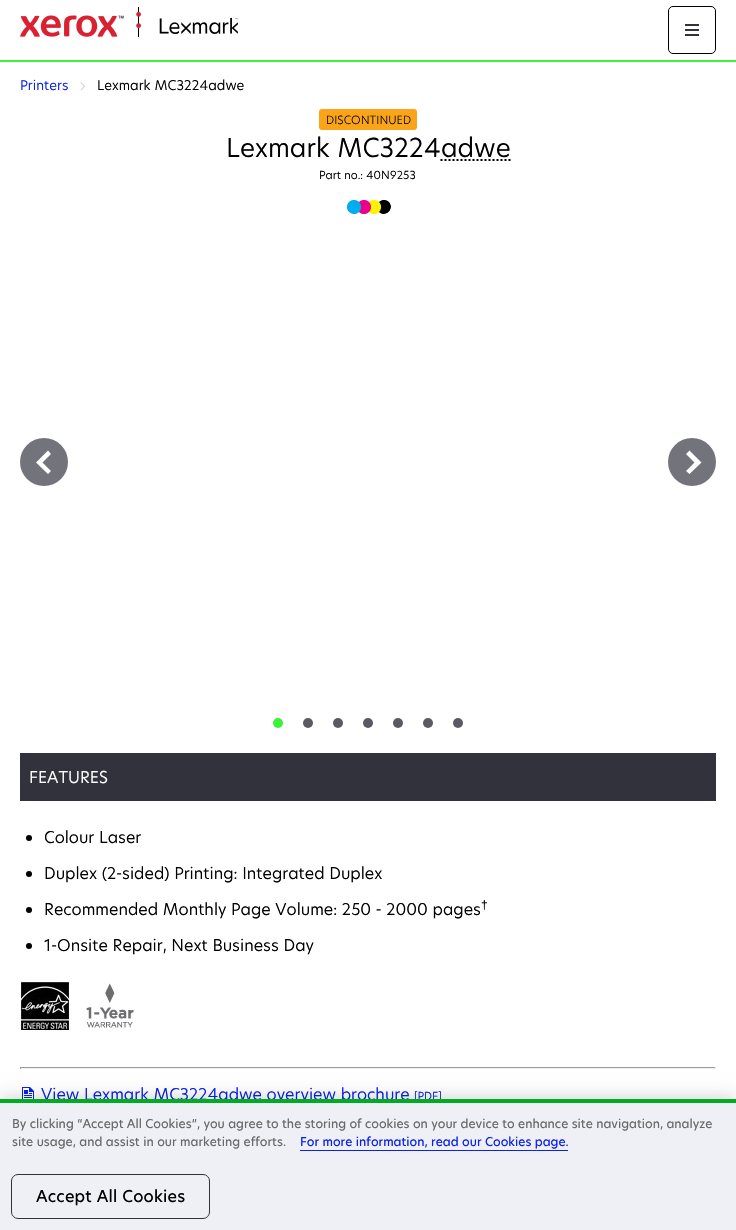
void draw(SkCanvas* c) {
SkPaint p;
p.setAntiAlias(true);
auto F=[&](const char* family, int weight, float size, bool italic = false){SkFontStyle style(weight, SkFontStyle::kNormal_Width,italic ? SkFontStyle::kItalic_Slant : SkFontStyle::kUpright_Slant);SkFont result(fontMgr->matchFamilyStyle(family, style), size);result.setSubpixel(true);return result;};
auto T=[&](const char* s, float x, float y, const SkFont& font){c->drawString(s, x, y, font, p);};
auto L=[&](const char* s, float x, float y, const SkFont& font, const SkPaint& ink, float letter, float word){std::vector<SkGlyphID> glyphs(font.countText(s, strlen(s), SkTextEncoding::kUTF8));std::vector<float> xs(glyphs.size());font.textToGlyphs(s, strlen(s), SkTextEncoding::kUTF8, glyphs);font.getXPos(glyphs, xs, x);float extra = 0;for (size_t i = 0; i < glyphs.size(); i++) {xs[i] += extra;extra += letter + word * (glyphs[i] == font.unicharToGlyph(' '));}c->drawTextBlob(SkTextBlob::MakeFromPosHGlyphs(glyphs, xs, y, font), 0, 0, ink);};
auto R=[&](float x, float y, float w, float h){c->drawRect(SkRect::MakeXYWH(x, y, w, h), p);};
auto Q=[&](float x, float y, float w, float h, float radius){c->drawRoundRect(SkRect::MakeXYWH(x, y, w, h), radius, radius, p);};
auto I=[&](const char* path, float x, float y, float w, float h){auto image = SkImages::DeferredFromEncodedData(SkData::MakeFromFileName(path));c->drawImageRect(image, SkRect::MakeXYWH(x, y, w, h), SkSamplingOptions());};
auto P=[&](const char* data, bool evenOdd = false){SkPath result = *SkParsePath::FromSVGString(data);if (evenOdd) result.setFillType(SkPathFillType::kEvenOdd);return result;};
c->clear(0xffffffff);
p.setColor(0xff3af23a);
R(0,60,736,2);
I("1.png",20,7,218,30);
p.setStroke(true);
p.setStrokeWidth(1);
p.setColor(0xff000000);
c->drawRoundRect(SkRect::MakeXYWH(668.5,6.5,47,47),4.5,4.5,p);
I("2.png",685,24,14,12);
auto f1 = F("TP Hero",400,13.25);
p.setStroke(false);
p.setColor(0xff0a21ee);
T("Printers",20,90,f1);
I("3.png",80,82,5,8);
p.setColor(0xff000000);
T("Lexmark MC3224adwe",97,90,f1);
p.setColor(0xfffaa519);
Q(319,109,98,21,3);
auto f2 = F("TP Hero",300,11.25);
p.setColor(0xff000000);
T("DISCONTINUED",326,124,f2);
auto f3 = F("TP Hero",400,25.6);
T("Lexmark MC3224adwe",226,157,f3);
p.setStroke(true);
p.setStrokeWidth(2);
p.setPathEffect(SkDashPathEffect::Make({{2,2}}, 0));
c->drawPath(P("M440.5 160h70"),p);
p.setPathEffect(nullptr);
auto f4 = F("TP Hero",400,11);
p.setStroke(false);
T("Part no.: 40N9253",319,179,f4);
{
const SkColor colors[] = {0xff000000,0xffffffff};
const float stops[] = {.6,.68};
p.setShader(SkGradientShader::MakeRadial({384,207}, 11, colors, stops, 2, SkTileMode::kClamp));
p.setAlpha(255);
}
c->drawPath(P("M376 199h7.5c4 0 7.5 3.5 7.5 7.5c0 4-3.5 7.5-7.5 7.5h-7.5z"),p);
{
const SkColor colors[] = {0xfffff200,0x00fff200};
const float stops[] = {.6,.68};
p.setShader(SkGradientShader::MakeRadial({374,207}, 11, colors, stops, 2, SkTileMode::kClamp));
p.setAlpha(255);
}
R(369,200,12,14);
{
const SkColor colors[] = {0xffec008c,0x00ec008c};
const float stops[] = {.6,.68};
p.setShader(SkGradientShader::MakeRadial({364,207}, 11, colors, stops, 2, SkTileMode::kClamp));
p.setAlpha(255);
}
R(359,200,12,14);
{
const SkColor colors[] = {0xff00aeef,0x0000aeef};
const float stops[] = {.6,.68};
p.setShader(SkGradientShader::MakeRadial({354,207}, 11, colors, stops, 2, SkTileMode::kClamp));
p.setAlpha(255);
}
c->drawPath(P("M353.5 199h7.5v15h-7.5c-4 0-7.5-3.5-7.5-7.5c0-4 3.5-7.5 7.5-7.5z"),p);
p.setShader(nullptr);
p.setColor(0xff73737b);
c->drawCircle(44,462,24,p);
p.setColor(0xffffffff);
c->drawPath(P("M36 462.5l12 11.5l3-3l-8.5-8.5l8.5-8.5l-3-3.5z"),p);
p.setColor(0xff73737b);
c->drawCircle(692,462,24,p);
p.setColor(0xffffffff);
c->drawPath(P("M701.5 462.5l-12-12l-3.5 3.5l8.5 8.5l-8.5 8.5l3.5 3z"),p);
p.setColor(0xff3af23a);
c->drawCircle(278,723,5,p);
p.setColor(0xff5a5a64);
c->drawCircle(308,723,5,p);
c->drawCircle(338,723,5,p);
c->drawCircle(368,723,5,p);
c->drawCircle(398,723,5,p);
c->drawCircle(428,723,5,p);
c->drawCircle(458,723,5,p);
p.setColor(0xff32323c);
R(20,753,696,48);
auto f5 = F("TP Hero",400,16);
p.setColor(0xffffffff);
T("FEATURES",29,783,f5);
p.setColor(0xff000000);
c->drawCircle(29,838,3,p);
T("Colour Laser",44,843,f5);
c->drawCircle(29,874,3,p);
T("Duplex (2-sided) Printing: Integrated Duplex",44,879,f5);
c->drawCircle(29,910,3,p);
T("Recommended Monthly Page Volume: 250 - 2000 pages",44,915,f5);
auto f6 = F("Liberation Sans",400,12);
T("†",481,909,f6);
c->drawCircle(29,946,3,p);
T("1-Onsite Repair, Next Business Day",44,951,f5);
I("4.png",20,981,49,50);
I("5.png",86,983,48,45);
p.setColor(0xff9f9f9f);
R(20,1067,696,1);
p.setColor(0xffeeeeee);
R(715,1067,1,2);
R(20,1068,696,1);
p.setColor(0xff9f9f9f);
R(20,1067,1,2);
I("6.png",22,1087,12,12);
p.setColor(0xff0a21ee);
T("View Lexmark MC3224adwe overview brochure",41,1100,f5);
T("[PDF]",414,1100,f4);
p.setColor(0x33000000);
p.setMaskFilter(SkMaskFilter::MakeBlur(kNormal_SkBlurStyle, 9));
c->drawRect(SkRect::MakeXYWH(0,1099,736,131),p);
p.setMaskFilter(nullptr);
p.setColor(0xffeff0f6);
R(0,1103,736,127);
p.setColor(0xff00ad21);
R(0,1099,736,4);
auto f7 = F("TP Hero",500,12);
p.setColor(0xff696969);
L("By clicking “Accept All Cookies”, you agree to the storing of cookies on your device to enhance site navigation, analyze",12,1128,f7,p,0,-.1);
T("site usage, and assist in our marketing efforts.",12,1146,f7);
p.setColor(0xff0a21ee);
T("For more information, read our Cookies page.",300,1146,f7);
R(300,1150,268,1);
p.setStroke(true);
p.setStrokeWidth(1);
p.setColor(0xff32323c);
c->drawRoundRect(SkRect::MakeXYWH(11.5,1174.5,198,44),6.5,6.5,p);
auto f8 = F("TP Hero",500,16);
p.setStroke(false);
p.setColor(0xff000000);
L("Accept All Cookies",36,1202,f8,p,.2,0);
}
